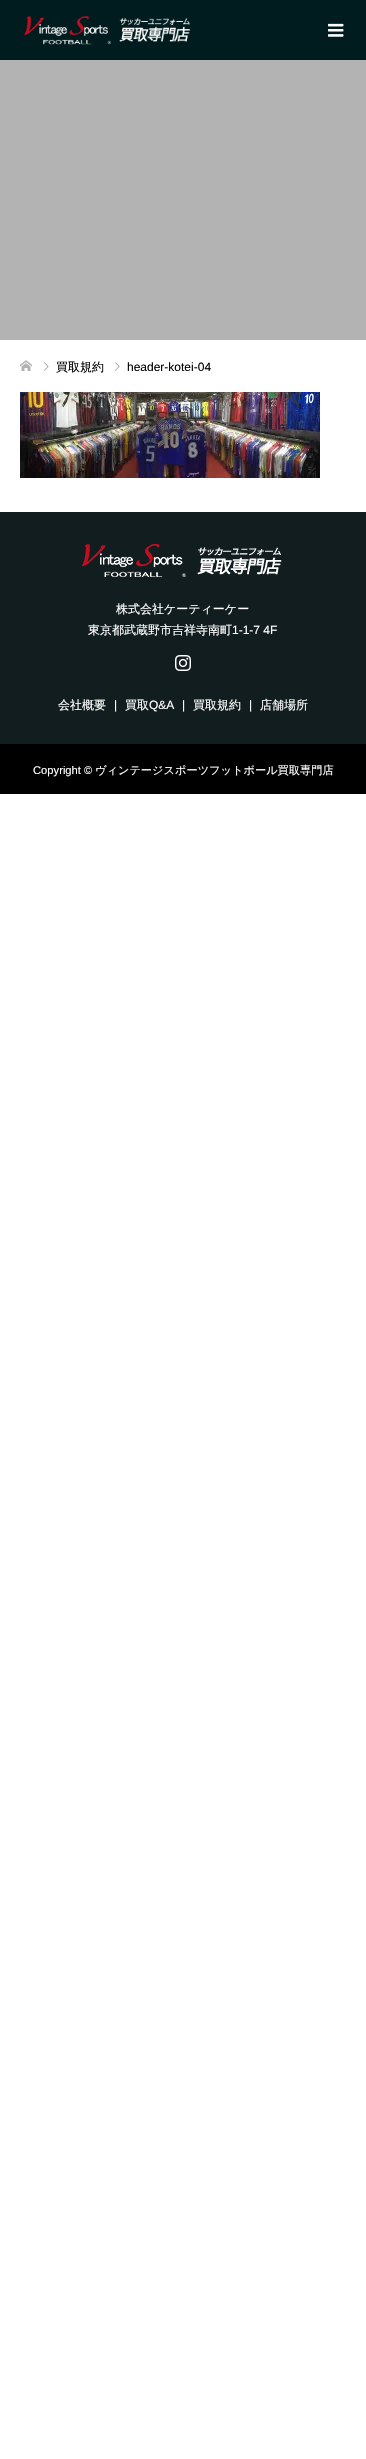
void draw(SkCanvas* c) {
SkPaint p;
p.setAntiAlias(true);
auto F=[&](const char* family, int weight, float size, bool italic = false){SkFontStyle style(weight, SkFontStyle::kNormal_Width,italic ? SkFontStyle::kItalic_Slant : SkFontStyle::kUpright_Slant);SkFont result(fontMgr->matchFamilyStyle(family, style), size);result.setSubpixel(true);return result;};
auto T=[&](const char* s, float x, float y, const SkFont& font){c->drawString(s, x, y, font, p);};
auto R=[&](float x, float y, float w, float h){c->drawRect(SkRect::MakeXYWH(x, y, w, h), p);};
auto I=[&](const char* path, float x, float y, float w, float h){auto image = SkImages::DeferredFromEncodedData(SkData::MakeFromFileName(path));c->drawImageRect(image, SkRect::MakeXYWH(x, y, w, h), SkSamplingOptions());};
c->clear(0xffffffff);
p.setColor(0xff001c1e);
R(0,0,366,60);
I("1.png",24,16,166,29);
I("2.png",328,23,16,14);
p.setColor(0xffb3b3b3);
R(0,60,366,280);
I("3.png",20,360,12,11);
I("4.png",44,362,5,9);
auto f1 = F("WenQuanYi Zen Hei",500,12);
p.setColor(0xff000000);
T("買取規約",56,371,f1);
I("4.png",115,362,5,9);
auto f2 = F("Liberation Sans",400,12);
T("header-kotei-04",127,371,f2);
I("5.png",20,392,300,86);
p.setColor(0xff121d1f);
R(0,512,366,232);
I("6.png",82,544,200,33);
p.setColor(0xffffffff);
T("株式会社ケーティーケー",116,613,f1);
T("東京都武蔵野市吉祥寺南町",88,634,f1);
T("1-1-7 4F",232,634,f2);
I("7.png",175,655,16,16);
T("会社概要",58,709,f1);
T("|",114,709,f2);
T("買取",125,709,f1);
T("Q&A",149,709,f2);
T("|",182,709,f2);
T("買取規約",193,709,f1);
T("|",249,709,f2);
T("店舗場所",260,709,f1);
p.setColor(0xff000000);
R(0,744,366,50);
auto f3 = F("Liberation Sans",400,11.2);
p.setColor(0xffffffff);
T("Copyright ©",33,774,f3);
auto f4 = F("WenQuanYi Zen Hei",500,11.2);
T("ヴィンテージスポーツフットボール買取専門店",95,774,f4);
}
